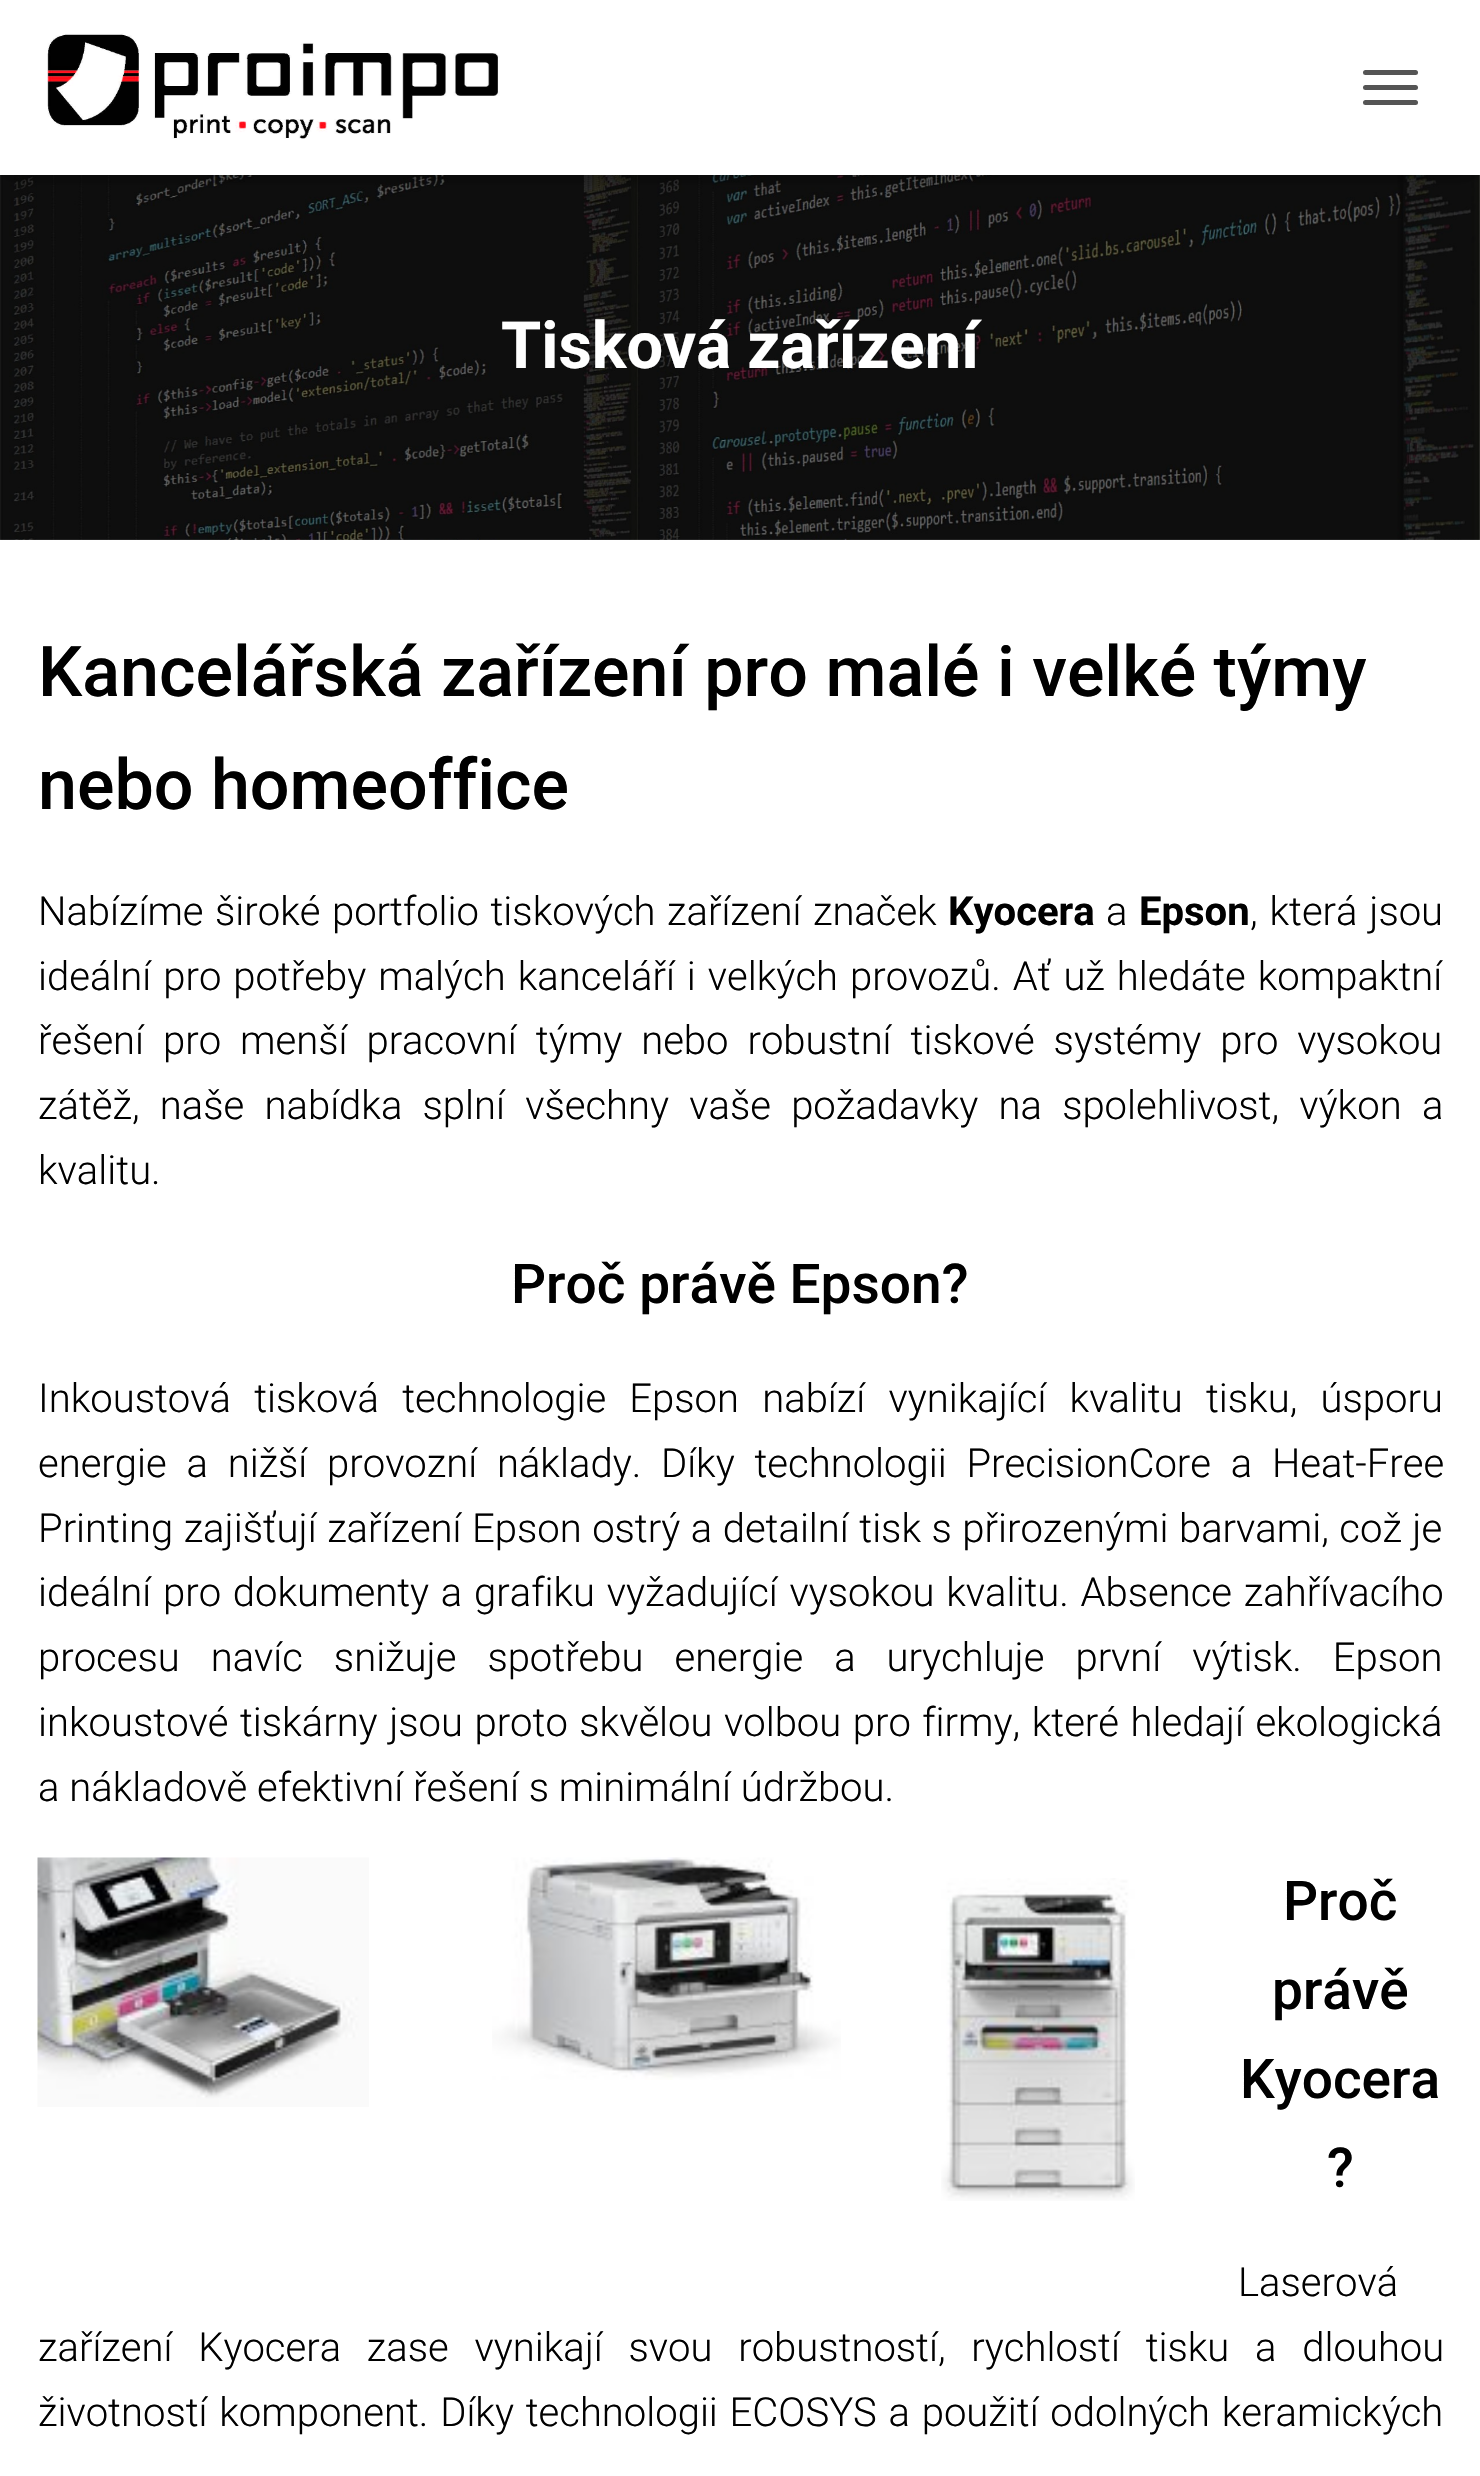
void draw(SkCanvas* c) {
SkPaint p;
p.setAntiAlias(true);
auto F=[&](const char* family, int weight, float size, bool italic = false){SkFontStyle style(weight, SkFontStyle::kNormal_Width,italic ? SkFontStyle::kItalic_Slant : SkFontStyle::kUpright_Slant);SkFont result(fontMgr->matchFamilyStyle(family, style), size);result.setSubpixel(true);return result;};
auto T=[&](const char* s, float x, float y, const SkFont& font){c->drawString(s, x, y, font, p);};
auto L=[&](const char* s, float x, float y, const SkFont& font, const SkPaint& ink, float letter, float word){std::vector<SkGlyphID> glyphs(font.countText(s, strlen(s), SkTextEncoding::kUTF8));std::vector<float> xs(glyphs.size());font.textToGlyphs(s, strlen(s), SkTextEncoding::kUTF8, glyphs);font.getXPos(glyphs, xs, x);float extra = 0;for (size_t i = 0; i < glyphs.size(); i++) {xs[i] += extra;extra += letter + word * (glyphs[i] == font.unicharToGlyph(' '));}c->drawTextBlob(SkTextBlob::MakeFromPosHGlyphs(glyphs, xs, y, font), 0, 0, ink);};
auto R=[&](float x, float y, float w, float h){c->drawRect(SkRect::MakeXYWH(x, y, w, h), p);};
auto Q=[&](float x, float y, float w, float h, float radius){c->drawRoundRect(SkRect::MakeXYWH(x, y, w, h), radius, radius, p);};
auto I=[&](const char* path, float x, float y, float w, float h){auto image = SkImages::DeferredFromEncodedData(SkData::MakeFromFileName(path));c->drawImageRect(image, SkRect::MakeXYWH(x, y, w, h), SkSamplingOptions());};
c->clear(0xffffffff);
I("2.png",0,175,1480,365);
p.setColor(0x1a000000);
p.setMaskFilter(SkMaskFilter::MakeBlur(kNormal_SkBlurStyle, 6));
c->drawRect(SkRect::MakeXYWH(5,15,1470,165),p);
p.setMaskFilter(nullptr);
p.setColor(0x1f000000);
p.setMaskFilter(SkMaskFilter::MakeBlur(kNormal_SkBlurStyle, 12.5));
c->drawRect(SkRect::MakeXYWH(0,3,1480,175),p);
p.setMaskFilter(nullptr);
p.setColor(0x6b000000);
p.setMaskFilter(SkMaskFilter::MakeBlur(kNormal_SkBlurStyle, 12.5));
c->drawRect(SkRect::MakeXYWH(15,18,1450,145),p);
p.setMaskFilter(nullptr);
p.setColor(0xffffffff);
R(0,0,1480,175);
I("1.png",47,33,453,106);
p.setColor(0xff555555);
Q(1363,70,55,5,2.5);
Q(1363,85,55,5,2.5);
Q(1363,100,55,5,2.5);
auto f1 = F("Roboto",700,65);
p.setColor(0xffffffff);
T("Tisková zařízení",501,368,f1);
auto f2 = F("Roboto",500,70);
p.setColor(0xff000000);
T("Kancelářská zařízení pro malé i velké týmy",38,696,f2);
T("nebo homeoffice",38,809,f2);
auto f3 = F("Roboto",300,40);
L("Nabízíme široké portfolio tiskových zařízení značek",38,925,f3,p,0,1.75);
auto f4 = F("Roboto",700,40);
T("Kyocera",948,925,f4);
T("a",1106,925,f3);
T("Epson",1139,925,f4);
L(", která jsou",1250,925,f3,p,0,2);
L("ideální pro potřeby malých kanceláří i velkých provozů. Ať už hledáte kompaktní",38,990,f3,p,0,2.25);
L("řešení pro menší pracovní týmy nebo robustní tiskové systémy pro vysokou",38,1054,f3,p,0,9.25);
L("zátěž, naše nabídka splní všechny vaše požadavky na spolehlivost, výkon a",38,1119,f3,p,0,10.5);
T("kvalitu.",38,1184,f3);
auto f5 = F("Roboto",500,55);
T("Proč právě Epson?",511,1303,f5);
L("Inkoustová tisková technologie Epson nabízí vynikající kvalitu tisku, úsporu",38,1412,f3,p,0,13.5);
L("energie a nižší provozní náklady. Díky technologii PrecisionCore a Heat-Free",38,1477,f3,p,0,10);
L("Printing zajišťují zařízení Epson ostrý a detailní tisk s přirozenými barvami, což je",38,1542,f3,p,0,.75);
L("ideální pro dokumenty a grafiku vyžadující vysokou kvalitu. Absence zahřívacího",38,1606,f3,p,0,2);
L("procesu navíc snižuje spotřebu energie a urychluje první výtisk. Epson",38,1671,f3,p,0,21.25);
L("inkoustové tiskárny jsou proto skvělou volbou pro firmy, které hledají ekologická",38,1736,f3,p,0,1.75);
T("a nákladově efektivní řešení s minimální údržbou.",38,1801,f3);
I("3.png",37,1857,332,250);
I("4.png",492,1857,349,223);
I("5.png",941,1878,194,323);
T("Proč",1283,1920,f5);
T("právě",1272,2009,f5);
T("Kyocera",1240,2098,f5);
T("?",1327,2187,f5);
T("Laserová",1238,2296,f3);
L("zařízení Kyocera zase vynikají svou robustností, rychlostí tisku a dlouhou",38,2361,f3,p,0,16);
L("životností komponent. Díky technologii ECOSYS a použití odolných keramických",38,2426,f3,p,0,2);
}
